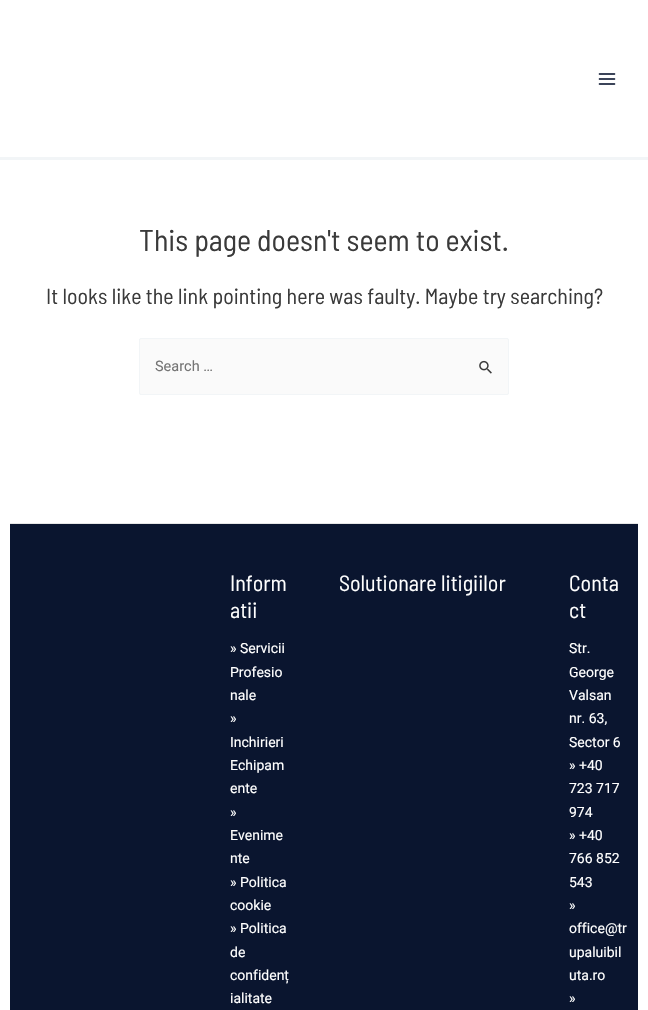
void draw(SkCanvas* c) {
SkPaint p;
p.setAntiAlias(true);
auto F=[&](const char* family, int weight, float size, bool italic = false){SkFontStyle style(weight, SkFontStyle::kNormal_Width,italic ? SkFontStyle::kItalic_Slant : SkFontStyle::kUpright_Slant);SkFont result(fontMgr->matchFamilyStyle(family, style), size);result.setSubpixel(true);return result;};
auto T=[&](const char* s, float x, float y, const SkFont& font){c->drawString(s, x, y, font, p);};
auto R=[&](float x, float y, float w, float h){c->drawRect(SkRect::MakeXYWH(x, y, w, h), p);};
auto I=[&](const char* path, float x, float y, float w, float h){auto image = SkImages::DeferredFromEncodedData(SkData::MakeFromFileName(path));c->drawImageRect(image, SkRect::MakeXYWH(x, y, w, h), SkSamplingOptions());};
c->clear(0xffffffff);
p.setColor(0xfff2f5f7);
R(0,157,648,3);
I("1.png",598,73,18,12);
auto f1 = F("Barlow Semi Condensed",400,30);
p.setColor(0xff3a3a3a);
T("This page doesn't seem to exist.",139,251,f1);
auto f2 = F("Barlow Semi Condensed",400,21.9);
T("It looks like the link pointing here was faulty. Maybe try searching?",46,304,f2);
p.setColor(0xfffafafa);
c->drawRoundRect(SkRect::MakeXYWH(139.5,338.5,369,56),1.5,1.5,p);
p.setStroke(true);
p.setStrokeWidth(1);
p.setColor(0xfff2f5f7);
c->drawRoundRect(SkRect::MakeXYWH(139.5,338.5,369,56),1.5,1.5,p);
auto f3 = F("Roboto",400,14.5);
p.setStroke(false);
p.setColor(0xff757575);
T("Search …",155,371,f3);
I("2.png",479,360,13,14);
p.setColor(0xff0a152f);
R(10,524,628,486);
p.setColor(0xffe6e6e6);
R(10,523,628,1);
auto f4 = F("Barlow Semi Condensed",400,22);
p.setColor(0xffffffff);
T("Inform",230,591,f4);
T("atii",230,618,f4);
auto f5 = F("Roboto",400,14);
T("» Servicii",230,653,f5);
T("Profesio",230,677,f5);
T("nale",230,700,f5);
T("»",230,723,f5);
T("Inchirieri",230,747,f5);
T("Echipam",230,770,f5);
T("ente",230,793,f5);
T("»",230,817,f5);
T("Evenime",230,840,f5);
T("nte",230,863,f5);
T("» Politica",230,887,f5);
T("cookie",230,910,f5);
T("» Politica",230,933,f5);
T("de",230,957,f5);
T("confidenț",230,980,f5);
T("ialitate",230,1003,f5);
T("Solutionare litigiilor",339,591,f4);
T("Conta",569,591,f4);
T("ct",569,618,f4);
T("Str.",569,653,f5);
T("George",569,677,f5);
T("Valsan",569,700,f5);
T("nr. 63,",569,723,f5);
T("Sector 6",569,747,f5);
T("» +40",569,770,f5);
T("723 717",569,793,f5);
T("974",569,817,f5);
T("» +40",569,840,f5);
T("766 852",569,863,f5);
T("543",569,887,f5);
T("»",569,910,f5);
T("office@tr",569,933,f5);
T("upaluibil",569,957,f5);
T("uta.ro",569,980,f5);
T("»",569,1003,f5);
}
